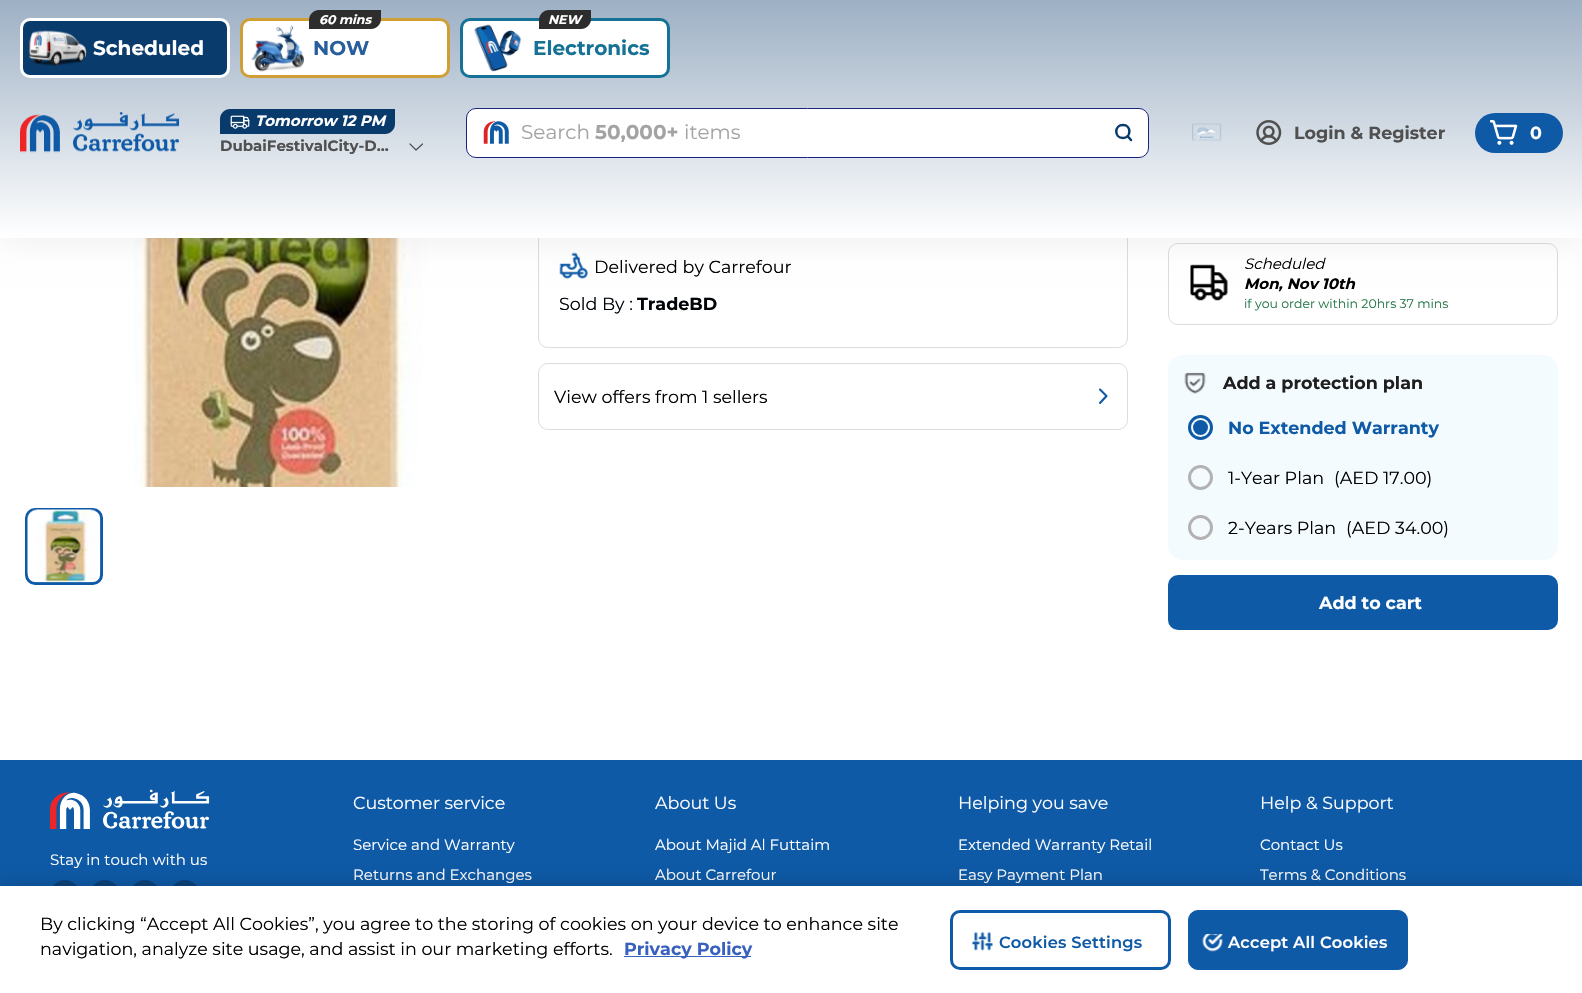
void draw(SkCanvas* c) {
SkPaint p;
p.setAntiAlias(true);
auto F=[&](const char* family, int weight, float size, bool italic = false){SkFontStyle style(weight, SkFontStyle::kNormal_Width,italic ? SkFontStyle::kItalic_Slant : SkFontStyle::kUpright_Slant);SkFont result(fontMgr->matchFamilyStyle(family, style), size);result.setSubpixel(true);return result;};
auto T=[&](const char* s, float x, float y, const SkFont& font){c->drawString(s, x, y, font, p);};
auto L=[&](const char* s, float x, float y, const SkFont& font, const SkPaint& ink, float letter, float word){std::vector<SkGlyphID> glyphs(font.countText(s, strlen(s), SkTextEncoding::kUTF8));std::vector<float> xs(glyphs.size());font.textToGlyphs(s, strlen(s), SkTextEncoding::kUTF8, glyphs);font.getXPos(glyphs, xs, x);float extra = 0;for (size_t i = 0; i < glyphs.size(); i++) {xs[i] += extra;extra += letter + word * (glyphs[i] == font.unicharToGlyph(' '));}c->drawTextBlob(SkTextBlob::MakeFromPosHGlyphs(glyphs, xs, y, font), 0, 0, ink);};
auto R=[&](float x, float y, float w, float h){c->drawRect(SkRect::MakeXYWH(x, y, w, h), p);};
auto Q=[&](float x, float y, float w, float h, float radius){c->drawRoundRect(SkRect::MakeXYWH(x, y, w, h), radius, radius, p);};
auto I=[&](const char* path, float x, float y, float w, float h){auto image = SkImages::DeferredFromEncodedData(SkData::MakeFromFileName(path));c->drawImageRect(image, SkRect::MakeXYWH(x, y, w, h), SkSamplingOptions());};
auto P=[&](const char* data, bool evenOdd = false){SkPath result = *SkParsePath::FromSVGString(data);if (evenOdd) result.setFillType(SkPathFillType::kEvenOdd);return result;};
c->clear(0xffffffff);
I("10.png",133,238,293,249);
p.setStroke(true);
p.setStrokeWidth(1);
p.setColor(0xffdcdcdc);
c->drawRoundRect(SkRect::MakeXYWH(538.5,220.5,589,127),9.5,9.5,p);
I("12.png",559,252,29,27);
c->drawRoundRect(SkRect::MakeXYWH(1168.5,243.5,389,81),9.5,9.5,p);
I("13.png",1190,264,38,37);
p.setStroke(false);
p.setColor(0x0f000000);
p.setMaskFilter(SkMaskFilter::MakeBlur(kNormal_SkBlurStyle, 15));
c->drawRect(SkRect::MakeXYWH(0,5,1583,238),p);
p.setMaskFilter(nullptr);
{
const SkColor colors[] = {0xff9db0c4,0xffffffff};
const float stops[] = {0,1};
const SkPoint ends[] = {{791,0}, {791,238}};
p.setShader(SkGradientShader::MakeLinear(ends, colors, stops, 2, SkTileMode::kClamp));
p.setAlpha(255);
}
R(0,0,1582,238);
p.setShader(nullptr);
p.setColor(0xff093b6c);
c->drawRoundRect(SkRect::MakeXYWH(21.5,19.5,207,57),8.5,8.5,p);
p.setStroke(true);
p.setStrokeWidth(3);
p.setColor(0xffffffff);
c->drawRoundRect(SkRect::MakeXYWH(21.5,19.5,207,57),8.5,8.5,p);
I("1.png",28,30,59,37);
auto f1 = F("Montserrat",700,20);
p.setStroke(false);
T("Scheduled",93,55,f1);
c->drawRoundRect(SkRect::MakeXYWH(241.5,19.5,207,57),8.5,8.5,p);
p.setStroke(true);
p.setColor(0xffcf9e36);
c->drawRoundRect(SkRect::MakeXYWH(241.5,19.5,207,57),8.5,8.5,p);
p.setStroke(false);
p.setColor(0xff2d2d2d);
c->drawPath(P("M319 10h62v9c0 5.5-4.5 10-10 10h-62v-9c0-5.5 4.5-10 10-10z"),p);
auto f2 = F("Montserrat",700,12.5,true);
p.setColor(0xffffffff);
T("60 mins",319,24,f2);
I("2.png",251,25,53,47);
p.setColor(0xff285e9c);
T("NOW",313,55,f1);
p.setColor(0xffffffff);
c->drawRoundRect(SkRect::MakeXYWH(461.5,19.5,207,57),8.5,8.5,p);
p.setStroke(true);
p.setColor(0xff157296);
c->drawRoundRect(SkRect::MakeXYWH(461.5,19.5,207,57),8.5,8.5,p);
p.setStroke(false);
p.setColor(0xff2d2d2d);
c->drawPath(P("M549 10h42v9c0 5.5-4.5 10-10 10h-42v-9c0-5.5 4.5-10 10-10z"),p);
p.setColor(0xffffffff);
T("NEW",548,24,f2);
I("3.png",474,24,48,48);
p.setColor(0xff157296);
T("Electronics",533,55,f1);
I("4.png",20,111,160,42);
p.setColor(0xff093a6c);
c->drawPath(P("M230 109h165v15c0 5.5-4.5 10-10 10h-165v-15c0-5.5 4.5-10 10-10z"),p);
I("5.png",230,115,20,14);
auto f3 = F("Montserrat",700,15,true);
p.setColor(0xffffffff);
T("Tomorrow 12 PM",255,126,f3);
auto f4 = F("Montserrat",700,15);
p.setColor(0xff505050);
T("DubaiFestivalCity-D…",220,151,f4);
p.setStroke(true);
p.setStrokeWidth(1.2);
p.setStrokeCap(SkPaint::kRound_Cap);
p.setStrokeJoin(SkPaint::kRound_Join);
c->drawPath(P("M422.5 144l-6.5 6l-6-6"),p);
p.setStroke(false);
p.setColor(0xffffffff);
c->drawRoundRect(SkRect::MakeXYWH(466.5,108.5,682,49),9.5,9.5,p);
p.setStroke(true);
p.setStrokeWidth(1);
p.setStrokeCap(SkPaint::kButt_Cap);
p.setStrokeJoin(SkPaint::kMiter_Join);
p.setColor(0xff1a237e);
c->drawRoundRect(SkRect::MakeXYWH(466.5,108.5,682,49),9.5,9.5,p);
I("6.png",483,121,26,23);
auto f5 = F("Montserrat",400,20);
p.setStroke(false);
p.setColor(0xffa3a3a3);
T("Search",521,139,f5);
T("50,000+",595,139,f1);
T("items",684,139,f5);
p.setStroke(true);
p.setStrokeWidth(2.5);
p.setStrokeCap(SkPaint::kRound_Cap);
p.setStrokeJoin(SkPaint::kRound_Join);
p.setColor(0xff093a6c);
c->drawPath(P("M1123 138c8.5 0 8.5-13 0-13c-9 0-9 13 0 13zm4.5-2l3.5 4"),p);
I("7.png",1192,123,30,18);
I("8.png",1256,120,26,25);
auto f6 = F("Montserrat",700,17.5);
p.setStroke(false);
p.setColor(0xff505050);
T("Login & Register",1294,139,f6);
p.setColor(0xff0e5aa7);
Q(1475,113,88,40,20);
I("9.png",1490,120,28,25);
p.setColor(0xffffffff);
T("0",1530,139,f6);
p.setStroke(true);
p.setStrokeWidth(3);
p.setStrokeCap(SkPaint::kButt_Cap);
p.setStrokeJoin(SkPaint::kMiter_Join);
p.setColor(0xff0e5aa7);
c->drawRoundRect(SkRect::MakeXYWH(26.5,509.5,75,74),8.5,8.5,p);
I("11.png",27,509,74,74);
auto f7 = F("Montserrat",400,17.5);
p.setStroke(false);
p.setColor(0xff000000);
T("Delivered by Carrefour",594,273,f7);
p.setColor(0xff000408);
T("Sold By :",559,310,f7);
T("TradeBD",637,310,f6);
p.setStroke(true);
p.setStrokeWidth(1);
p.setColor(0xffdcdcdc);
c->drawRoundRect(SkRect::MakeXYWH(538.5,363.5,589,66),9.5,9.5,p);
p.setStroke(false);
p.setColor(0xff000000);
T("View offers from 1 sellers",554,403,f7);
p.setStroke(true);
p.setStrokeWidth(2.1);
p.setStrokeCap(SkPaint::kRound_Cap);
p.setStrokeJoin(SkPaint::kRound_Join);
p.setColor(0xff0e5aa7);
c->drawPath(P("M1100 389.5l6.5 6.5l-6.5 7"),p);
auto f8 = F("Montserrat",400,15,true);
p.setStroke(false);
p.setColor(0xff000000);
T("Scheduled",1244,269,f8);
T("Mon, Nov 10th",1244,289,f3);
auto f9 = F("Montserrat",400,12.5);
p.setColor(0xff267949);
T("if you order within 20hrs 37 mins",1244,308,f9);
p.setColor(0xfff4fbfe);
Q(1168,355,390,205,15);
I("14.png",1184,372,22,22);
p.setColor(0xff1f1f1f);
T("Add a protection plan",1223,389,f6);
p.setStroke(true);
p.setStrokeWidth(3);
p.setStrokeCap(SkPaint::kButt_Cap);
p.setStrokeJoin(SkPaint::kMiter_Join);
p.setColor(0xff0e5aa7);
c->drawCircle(1200.5,427.5,11,p);
p.setStroke(false);
c->drawCircle(1200.5,427.5,7.5,p);
T("No Extended Warranty",1228,434,f6);
p.setStroke(true);
p.setColor(0xffb2b2b2);
c->drawCircle(1200.5,477.5,11,p);
p.setStroke(false);
p.setColor(0xff000000);
T("1-Year Plan",1228,484,f7);
T("(AED 17.00)",1334,484,f7);
p.setStroke(true);
p.setColor(0xffb2b2b2);
c->drawCircle(1200.5,527.5,11,p);
p.setStroke(false);
p.setColor(0xff000000);
T("2-Years Plan",1228,534,f7);
T("(AED 34.00)",1346,534,f7);
p.setColor(0xff0e5aa7);
Q(1168,575,390,55,10);
p.setColor(0xffffffff);
T("Add to cart",1319,609,f6);
p.setColor(0xff0e5aa7);
R(0,760,1582,126);
I("15.png",50,789,160,40);
auto f10 = F("Montserrat",400,15);
p.setColor(0xffffffff);
T("Stay in touch with us",50,865,f10);
I("16.png",53,880,24,6);
I("16.png",93,880,24,6);
I("16.png",133,880,24,6);
I("16.png",173,880,24,6);
T("Customer service",353,809,f7);
T("Service and Warranty",353,850,f10);
T("Returns and Exchanges",353,880,f10);
T("About Us",655,809,f7);
T("About Majid Al Futtaim",655,850,f10);
T("About Carrefour",655,880,f10);
T("Helping you save",958,809,f7);
T("Extended Warranty Retail",958,850,f10);
T("Easy Payment Plan",958,880,f10);
T("Help & Support",1260,809,f7);
T("Contact Us",1260,850,f10);
T("Terms & Conditions",1260,880,f10);
p.setColor(0x33000000);
p.setMaskFilter(SkMaskFilter::MakeBlur(kNormal_SkBlurStyle, 11));
c->drawRect(SkRect::MakeXYWH(0,886,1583,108),p);
p.setMaskFilter(nullptr);
p.setColor(0xffffffff);
R(0,886,1582,107);
auto f11 = F("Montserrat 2",400,17.5);
p.setColor(0xff000000);
T("By clicking “Accept All Cookies”, you agree to the storing of cookies on your device to enhance site",40,930,f11);
T("navigation, analyze site usage, and assist in our marketing efforts.",40,955,f11);
p.setColor(0xff3860be);
R(624,956,127,1);
auto f12 = F("Montserrat 2",700,17.5);
T("Privacy Policy",624,955,f12);
p.setStroke(true);
p.setColor(0xff0e5aa7);
c->drawRoundRect(SkRect::MakeXYWH(951.5,911.5,218,57),8.5,8.5,p);
I("17.png",972,932,21,19);
auto f13 = F("Montserrat",600,16.25);
p.setStroke(false);
L("Cookies Settings",999,948,f13,p,.2,0);
c->drawRoundRect(SkRect::MakeXYWH(1188.5,910.5,219,59),9.5,9.5,p);
p.setStroke(true);
p.setStrokeWidth(1);
c->drawRoundRect(SkRect::MakeXYWH(1188.5,910.5,219,59),9.5,9.5,p);
I("18.png",1202,934,21,18);
p.setStroke(false);
p.setColor(0xffffffff);
L("Accept All Cookies",1228,948,f13,p,.2,0);
}
